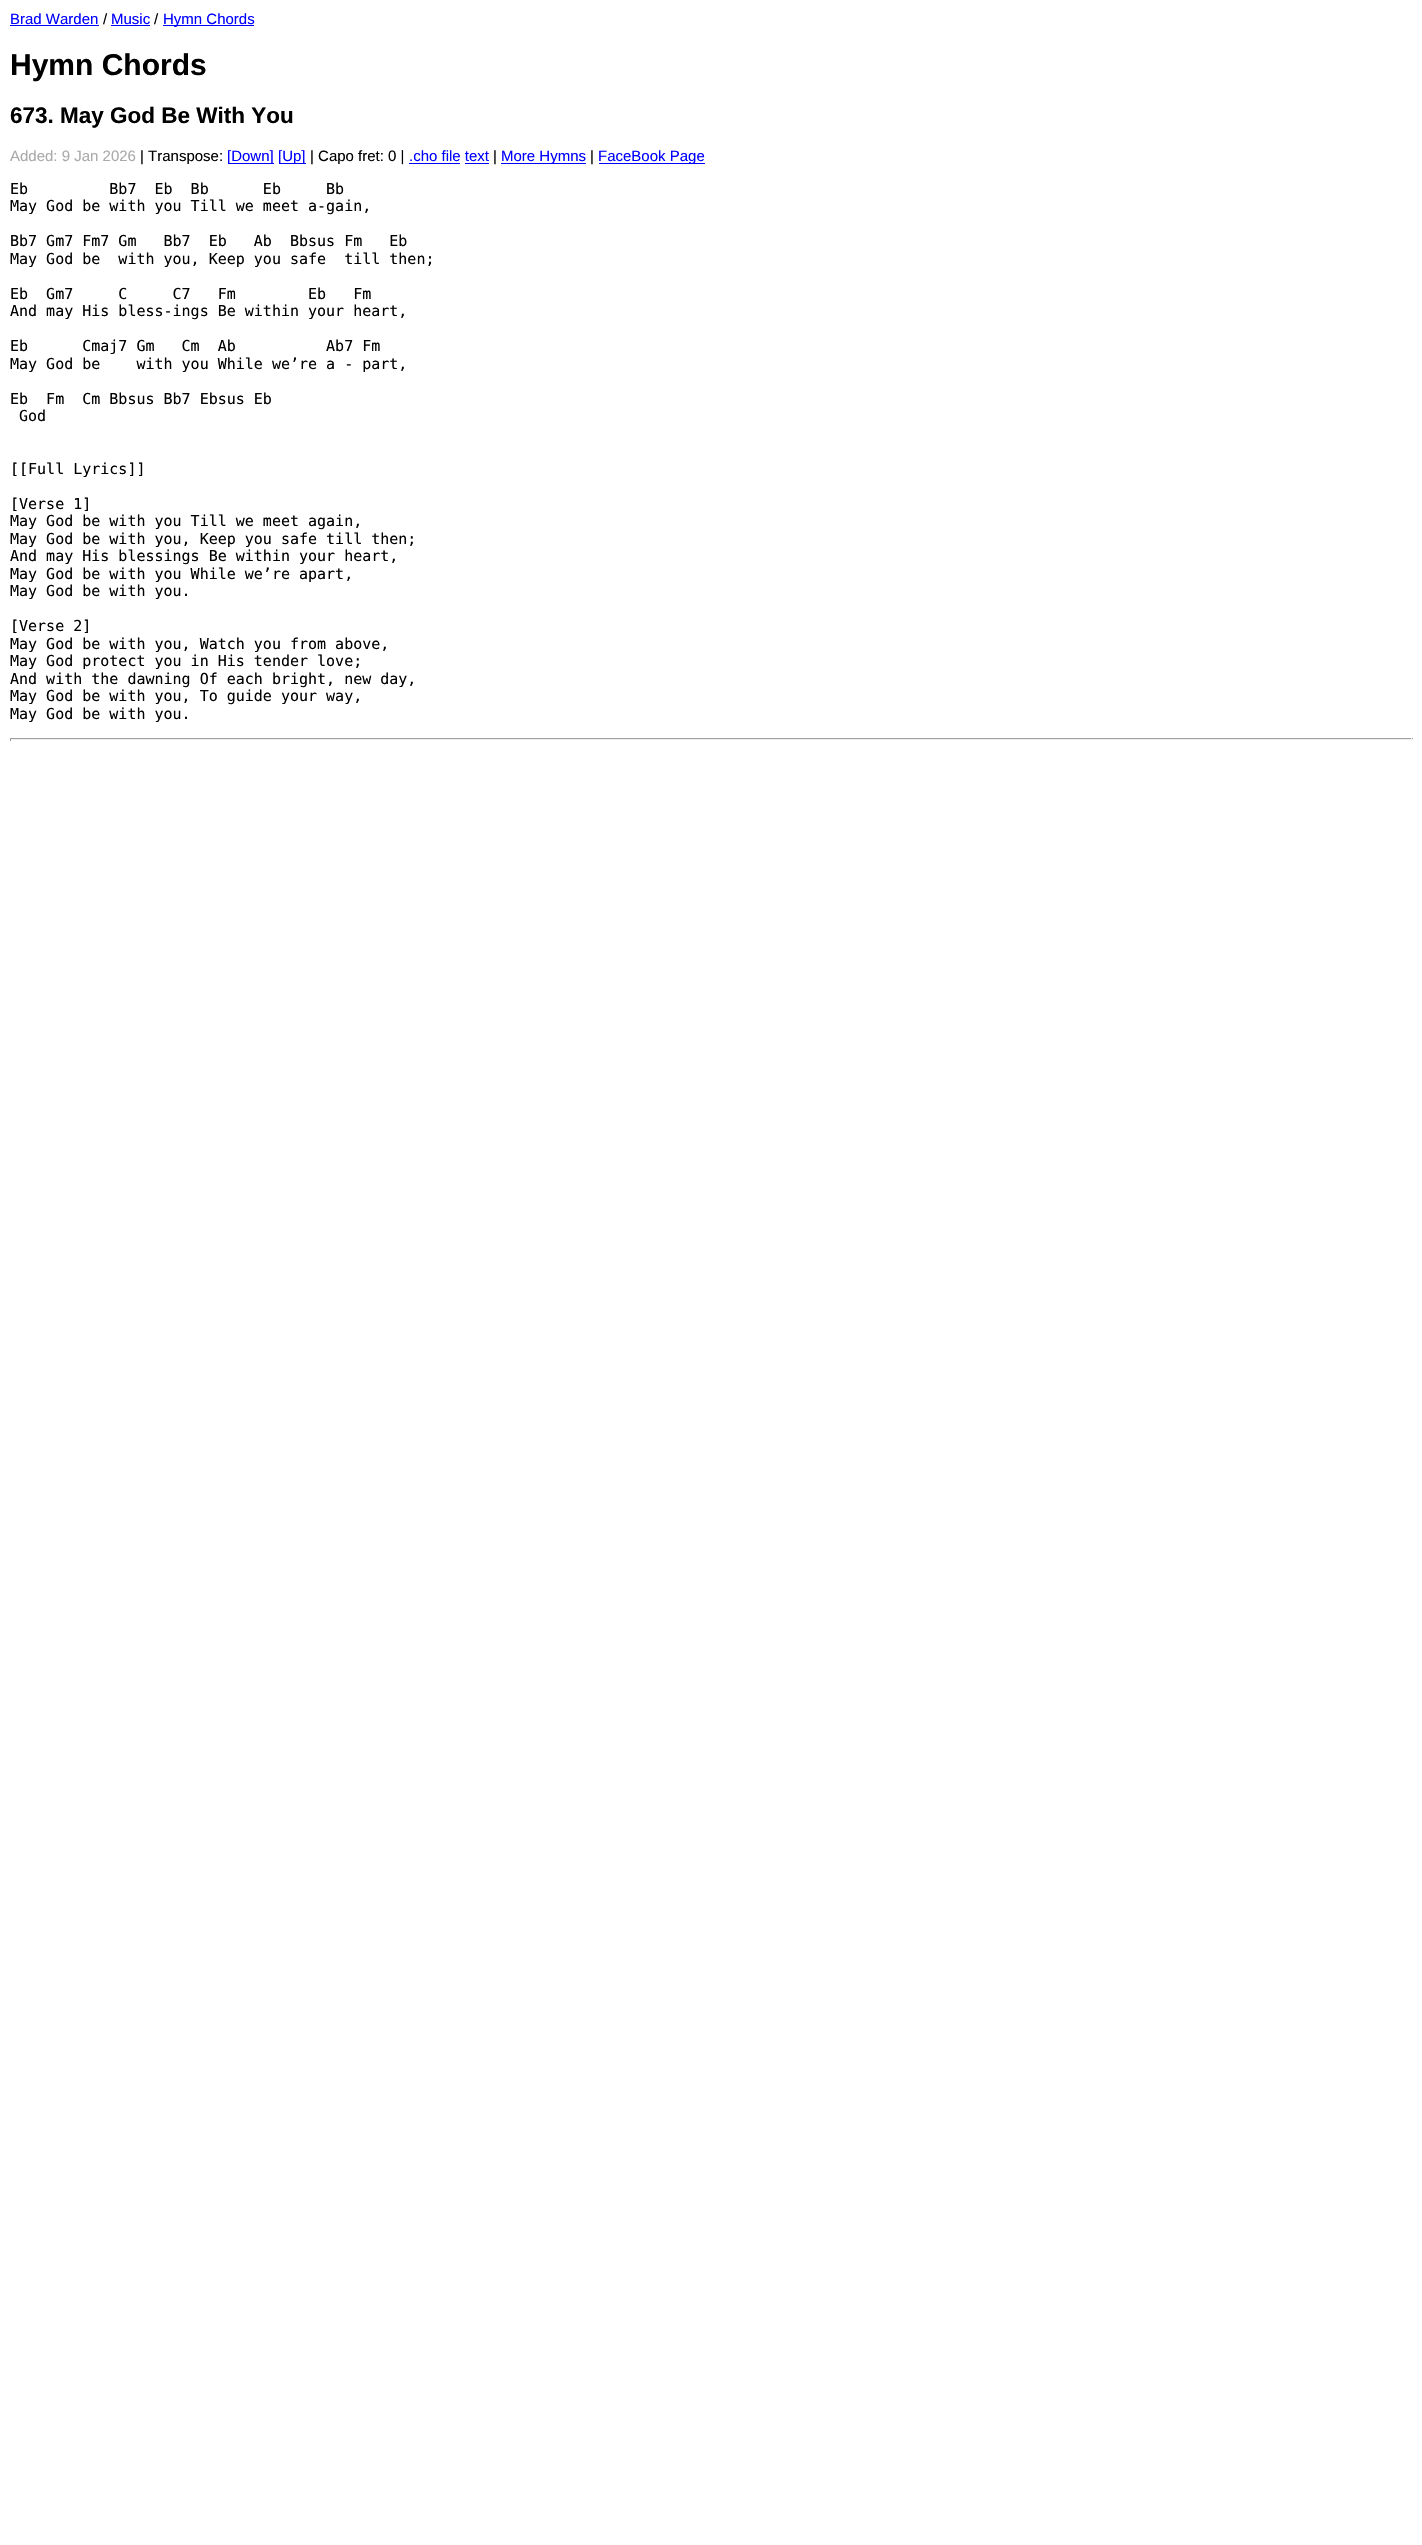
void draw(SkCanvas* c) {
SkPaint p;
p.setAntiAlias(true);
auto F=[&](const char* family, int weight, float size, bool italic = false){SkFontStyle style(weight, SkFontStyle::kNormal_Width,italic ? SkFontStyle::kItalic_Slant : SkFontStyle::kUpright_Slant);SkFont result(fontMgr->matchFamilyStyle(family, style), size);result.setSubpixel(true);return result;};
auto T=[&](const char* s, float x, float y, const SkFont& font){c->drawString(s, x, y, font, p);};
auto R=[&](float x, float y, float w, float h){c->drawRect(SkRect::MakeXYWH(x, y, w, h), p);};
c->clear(0xffffffff);
auto f1 = F("Liberation Sans",400,15);
p.setColor(0xff0000ff);
T("Brad Warden",10,24,f1);
R(10,25,89,1);
p.setColor(0xff000000);
T("/",103,24,f1);
p.setColor(0xff0000ff);
T("Music",111,24,f1);
R(111,25,39,1);
p.setColor(0xff000000);
T("/",154,24,f1);
p.setColor(0xff0000ff);
R(163,25,91,1);
T("Hymn Chords",163,24,f1);
auto f2 = F("Liberation Sans",700,30);
p.setColor(0xff000000);
T("Hymn Chords",10,75,f2);
auto f3 = F("Liberation Sans",700,22.5);
T("673. May God Be With You",10,123,f3);
p.setColor(0xffaaaaaa);
T("Added: 9 Jan 2026",10,161,f1);
p.setColor(0xff000000);
T("| Transpose:",140,161,f1);
p.setColor(0xff0000ff);
R(228,163,46,1);
T("[Down]",227,161,f1);
R(279,163,27,1);
T("[Up]",278,161,f1);
p.setColor(0xff000000);
T("| Capo fret: 0 |",310,161,f1);
p.setColor(0xff0000ff);
T(".cho file text",409,161,f1);
R(409,163,51,1);
p.setColor(0xff000000);
T("|",493,161,f1);
p.setColor(0xff0000ff);
R(501,163,85,1);
T("More Hymns",501,161,f1);
p.setColor(0xff000000);
T("|",590,161,f1);
p.setColor(0xff0000ff);
R(599,163,106,1);
T("FaceBook Page",598,161,f1);
R(465,163,24,1);
auto f4 = F("DejaVu Sans Mono",400,15);
p.setColor(0xff000000);
T("Eb         Bb7  Eb  Bb      Eb     Bb",10,194,f4);
T("May God be with you Till we meet a-gain,",10,211,f4);
T("Bb7 Gm7 Fm7 Gm   Bb7  Eb   Ab  Bbsus Fm   Eb",10,246,f4);
T("May God be  with you, Keep you safe  till then;",10,264,f4);
T("Eb  Gm7     C     C7   Fm        Eb   Fm",10,299,f4);
T("And may His bless-ings Be within your heart,",10,316,f4);
T("Eb      Cmaj7 Gm   Cm  Ab          Ab7 Fm",10,351,f4);
T("May God be    with you While we’re a - part,",10,369,f4);
T("Eb  Fm  Cm Bbsus Bb7 Ebsus Eb",10,404,f4);
T("God",19,421,f4);
T("[[Full Lyrics]]",10,474,f4);
T("[Verse 1]",10,509,f4);
T("May God be with you Till we meet again,",10,526,f4);
T("May God be with you, Keep you safe till then;",10,544,f4);
T("And may His blessings Be within your heart,",10,561,f4);
T("May God be with you While we’re apart,",10,579,f4);
T("May God be with you.",10,596,f4);
T("[Verse 2]",10,631,f4);
T("May God be with you, Watch you from above,",10,649,f4);
T("May God protect you in His tender love;",10,666,f4);
T("And with the dawning Of each bright, new day,",10,684,f4);
T("May God be with you, To guide your way,",10,701,f4);
T("May God be with you.",10,719,f4);
p.setColor(0xff9f9f9f);
R(10,738,1403,1);
p.setColor(0xffeeeeee);
R(1411,738,1,3);
R(10,739,1403,1);
p.setColor(0xff9f9f9f);
R(10,738,1,3);
}
